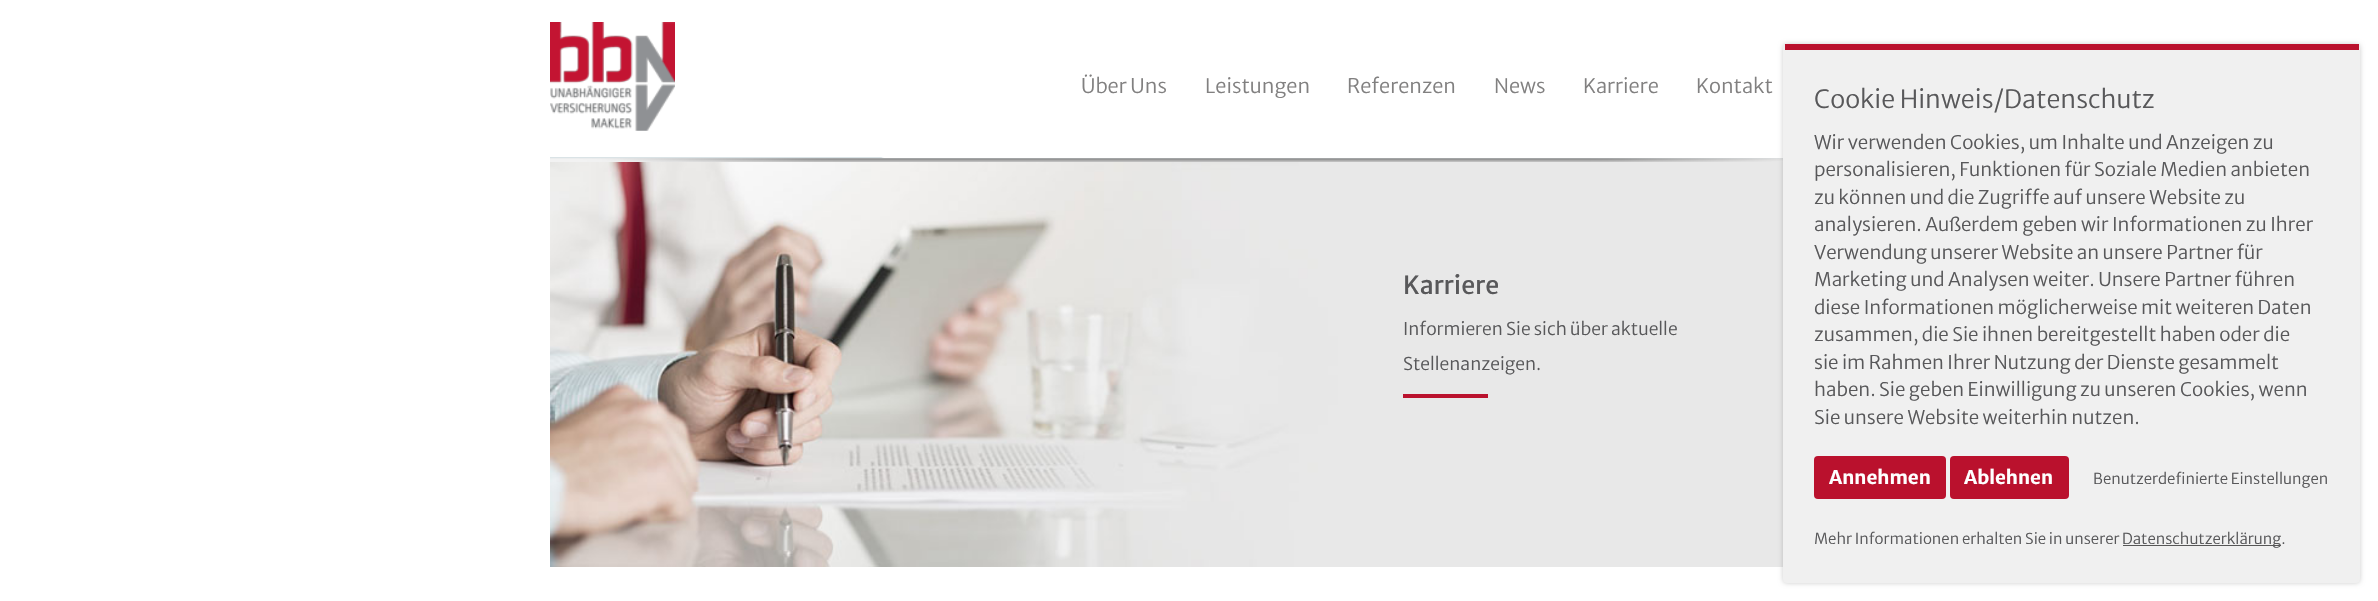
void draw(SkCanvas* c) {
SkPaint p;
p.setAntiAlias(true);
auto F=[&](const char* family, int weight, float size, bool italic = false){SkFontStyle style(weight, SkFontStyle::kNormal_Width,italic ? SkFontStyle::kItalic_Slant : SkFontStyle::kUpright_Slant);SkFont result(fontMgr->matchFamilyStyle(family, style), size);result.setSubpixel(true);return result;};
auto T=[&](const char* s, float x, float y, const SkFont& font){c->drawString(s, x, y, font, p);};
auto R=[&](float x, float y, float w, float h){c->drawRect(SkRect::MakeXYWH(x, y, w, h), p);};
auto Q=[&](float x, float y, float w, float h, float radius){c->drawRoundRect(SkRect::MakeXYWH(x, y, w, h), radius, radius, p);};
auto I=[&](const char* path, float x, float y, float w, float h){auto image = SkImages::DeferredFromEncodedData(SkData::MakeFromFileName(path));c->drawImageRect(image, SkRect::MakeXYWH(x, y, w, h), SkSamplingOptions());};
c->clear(0xffffffff);
I("1.png",550,22,125,109);
p.setColor(0xfff2f2f2);
R(550,158,1233,4);
I("2.png",550,157,1233,5);
p.setColor(0xffffffff);
Q(879,23,951,135,5);
auto f1 = F("Merriweather Sans",300,20);
p.setColor(0xff818080);
T("Über Uns",1081,93,f1);
T("Leistungen",1205,93,f1);
T("Referenzen",1347,93,f1);
T("News",1494,93,f1);
T("Karriere",1583,93,f1);
T("Kontakt",1696,93,f1);
I("3.png",550,162,1233,405);
auto f2 = F("Merriweather Sans",400,25);
p.setColor(0xff58585a);
T("Karriere",1403,294,f2);
auto f3 = F("Merriweather Sans",300,17.5);
T("Informieren Sie sich über aktuelle",1403,335,f3);
T("Stellenanzeigen.",1403,370,f3);
p.setColor(0xffba112d);
R(1403,394,85,4);
p.setColor(0x33000000);
p.setMaskFilter(SkMaskFilter::MakeBlur(kNormal_SkBlurStyle, 2.5));
c->drawRoundRect(SkRect::MakeXYWH(1783,44,577,539),4,4,p);
p.setMaskFilter(nullptr);
p.setColor(0xfff0f0f0);
Q(1783,44,577,539,4);
p.setColor(0xffba112d);
R(1785,44,574,6);
auto f4 = F("Merriweather Sans",300,25);
p.setColor(0xff58585a);
T("Cookie Hinweis/Datenschutz",1814,108,f4);
auto f5 = F("Merriweather Sans",300,18.75);
T("Wir verwenden Cookies, um Inhalte und Anzeigen zu",1814,149,f5);
T("personalisieren, Funktionen für Soziale Medien anbieten",1814,176,f5);
T("zu können und die Zugriffe auf unsere Website zu",1814,204,f5);
T("analysieren. Außerdem geben wir Informationen zu Ihrer",1814,231,f5);
T("Verwendung unserer Website an unsere Partner für",1814,259,f5);
T("Marketing und Analysen weiter. Unsere Partner führen",1814,286,f5);
T("diese Informationen möglicherweise mit weiteren Daten",1814,314,f5);
T("zusammen, die Sie ihnen bereitgestellt haben oder die",1814,341,f5);
T("sie im Rahmen Ihrer Nutzung der Dienste gesammelt",1814,369,f5);
T("haben. Sie geben Einwilligung zu unseren Cookies, wenn",1814,396,f5);
T("Sie unsere Website weiterhin nutzen.",1814,424,f5);
p.setColor(0xffba112d);
Q(1814,456,132,43,4);
auto f6 = F("Merriweather Sans",700,18.75);
p.setColor(0xffffffff);
T("Annehmen",1829,484,f6);
p.setColor(0xffba112d);
Q(1950,456,119,43,4);
p.setColor(0xffffffff);
T("Ablehnen",1964,484,f6);
auto f7 = F("Merriweather Sans",300,15);
p.setColor(0xff58585a);
T("Benutzerdefinierte Einstellungen",2093,484,f7);
T("Mehr Informationen erhalten Sie in unserer",1814,544,f7);
p.setColor(0xff565656);
R(2123,545,158,1);
p.setColor(0xff58585a);
T("Datenschutzerklärung.",2122,544,f7);
}
